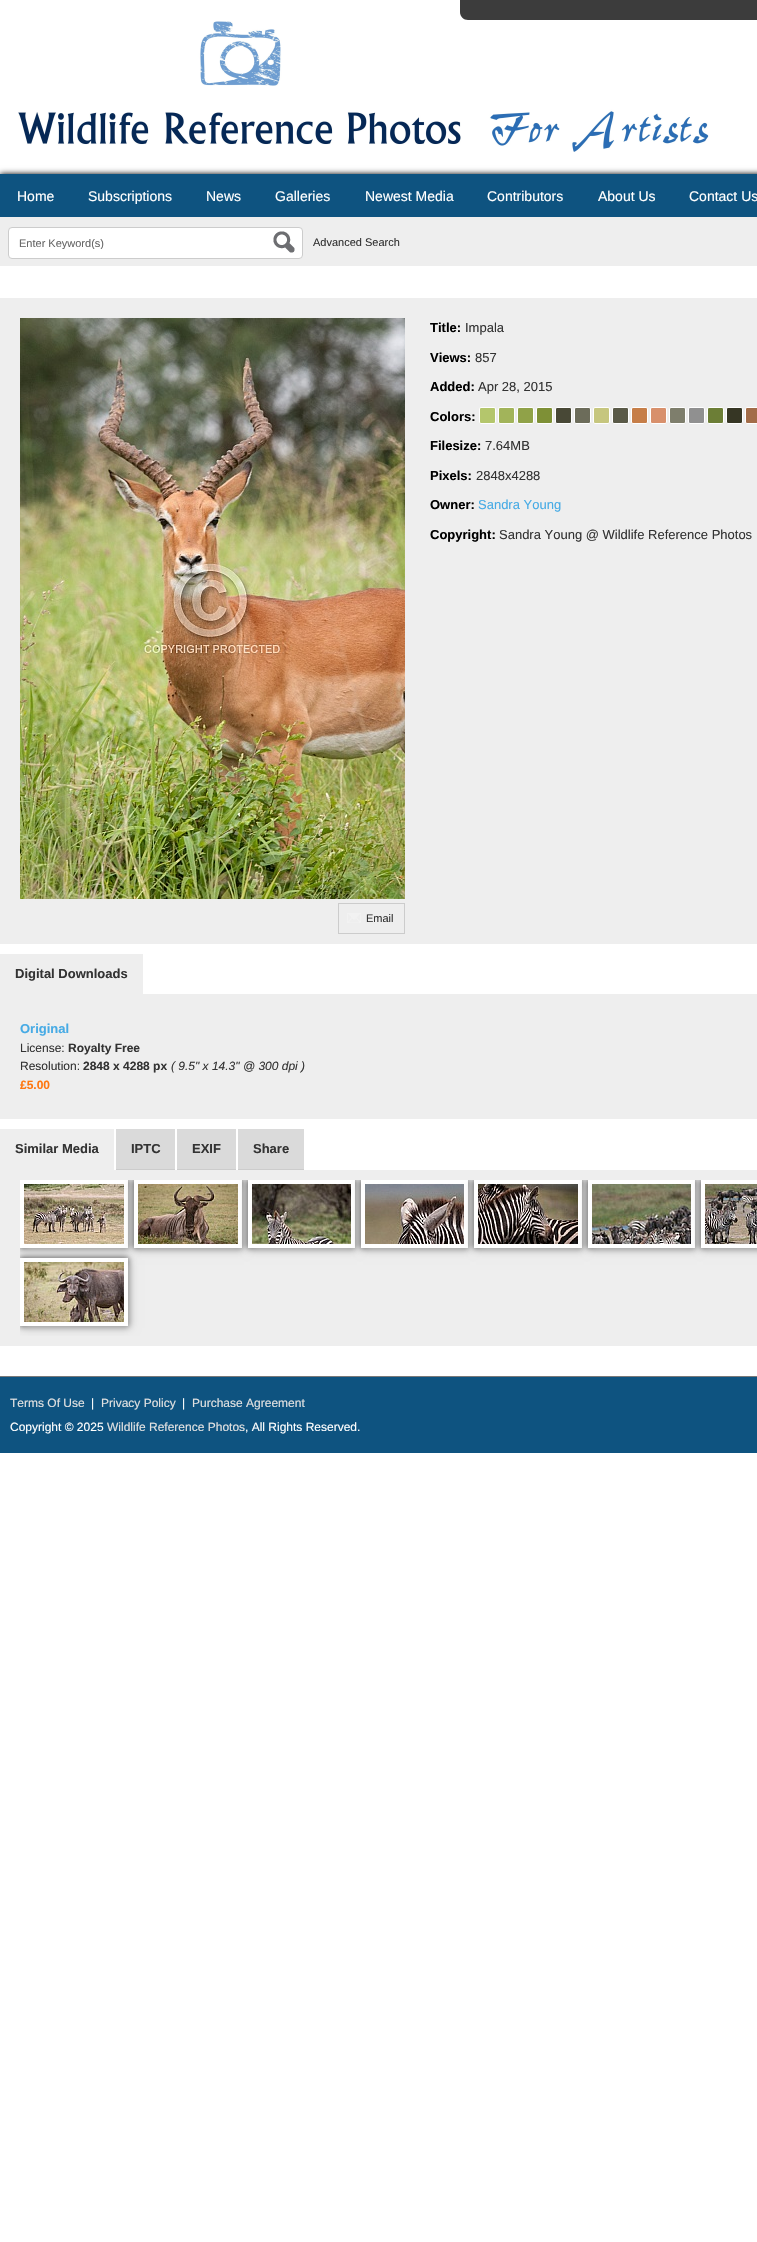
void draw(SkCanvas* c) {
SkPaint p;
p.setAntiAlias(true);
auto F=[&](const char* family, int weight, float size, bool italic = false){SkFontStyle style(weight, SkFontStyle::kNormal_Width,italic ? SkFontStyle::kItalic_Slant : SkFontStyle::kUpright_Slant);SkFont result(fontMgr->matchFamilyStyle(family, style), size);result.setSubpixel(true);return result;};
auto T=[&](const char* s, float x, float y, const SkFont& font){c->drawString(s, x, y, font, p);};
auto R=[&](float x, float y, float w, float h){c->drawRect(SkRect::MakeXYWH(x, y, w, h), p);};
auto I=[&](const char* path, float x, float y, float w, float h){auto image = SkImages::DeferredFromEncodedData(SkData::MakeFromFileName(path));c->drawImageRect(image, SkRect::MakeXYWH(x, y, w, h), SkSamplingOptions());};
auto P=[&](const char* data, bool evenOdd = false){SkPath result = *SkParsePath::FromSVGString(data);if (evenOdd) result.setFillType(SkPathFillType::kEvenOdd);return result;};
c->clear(0xffffffff);
p.setColor(0xff3c3c3c);
c->drawPath(P("M460 0h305v12c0 4.5-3.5 8-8 8h-289c-4.5 0-8-3.5-8-8z"),p);
I("1.png",18,21,691,131);
p.setColor(0xff000000);
p.setMaskFilter(SkMaskFilter::MakeBlur(kNormal_SkBlurStyle, 3));
c->drawRect(SkRect::MakeXYWH(0,174,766,43),p);
p.setMaskFilter(nullptr);
p.setColor(0xff0e5380);
R(0,174,757,43);
auto f1 = F("Liberation Sans",400,14);
p.setColor(0xffffffff);
T("Home",17,201,f1);
T("Subscriptions",88,201,f1);
T("News",206,201,f1);
T("Galleries",275,201,f1);
T("Newest Media",365,201,f1);
T("Contributors",487,201,f1);
T("About Us",598,201,f1);
T("Contact Us",689,201,f1);
p.setColor(0xffeeeeee);
R(0,217,757,49);
p.setColor(0xffffffff);
c->drawRoundRect(SkRect::MakeXYWH(8.5,227.5,294,31),3.5,3.5,p);
p.setStroke(true);
p.setStrokeWidth(1);
p.setColor(0xffcccccc);
c->drawRoundRect(SkRect::MakeXYWH(8.5,227.5,294,31),3.5,3.5,p);
c->save();
c->clipRect(SkRect::MakeXYWH(19,237,280,12));
auto f2 = F("Liberation Sans",400,11);
p.setStroke(false);
p.setColor(0xff666666);
T("Enter Keyword(s)",19,247,f2);
c->restore();
I("2.png",273,231,22,22);
p.setColor(0xff333333);
T("Advanced Search",313,246,f2);
p.setColor(0xffeeeeee);
R(0,298,757,646);
auto f3 = F("Liberation Sans",700,13);
p.setColor(0xff000000);
T("Title:",430,332,f3);
auto f4 = F("Liberation Sans",400,13);
p.setColor(0xff333333);
T("Impala",465,332,f4);
p.setColor(0xff000000);
T("Views:",430,362,f3);
p.setColor(0xff333333);
T("857",475,362,f4);
p.setColor(0xff000000);
T("Added:",430,391,f3);
p.setColor(0xff333333);
T("Apr 28, 2015",478,391,f4);
p.setColor(0xff000000);
T("Colors:",430,421,f3);
p.setColor(0xffb4c66c);
c->drawRoundRect(SkRect::MakeXYWH(479.5,407.5,16,16),1.5,1.5,p);
p.setStroke(true);
p.setColor(0xffffffff);
c->drawRoundRect(SkRect::MakeXYWH(479.5,407.5,16,16),1.5,1.5,p);
p.setStroke(false);
p.setColor(0xffa2b45a);
c->drawRoundRect(SkRect::MakeXYWH(498.5,407.5,16,16),1.5,1.5,p);
p.setStroke(true);
p.setColor(0xffffffff);
c->drawRoundRect(SkRect::MakeXYWH(498.5,407.5,16,16),1.5,1.5,p);
p.setStroke(false);
p.setColor(0xff90a248);
c->drawRoundRect(SkRect::MakeXYWH(517.5,407.5,16,16),1.5,1.5,p);
p.setStroke(true);
p.setColor(0xffffffff);
c->drawRoundRect(SkRect::MakeXYWH(517.5,407.5,16,16),1.5,1.5,p);
p.setStroke(false);
p.setColor(0xff7e9036);
c->drawRoundRect(SkRect::MakeXYWH(536.5,407.5,16,16),1.5,1.5,p);
p.setStroke(true);
p.setColor(0xffffffff);
c->drawRoundRect(SkRect::MakeXYWH(536.5,407.5,16,16),1.5,1.5,p);
p.setStroke(false);
p.setColor(0xff484836);
c->drawRoundRect(SkRect::MakeXYWH(555.5,407.5,16,16),1.5,1.5,p);
p.setStroke(true);
p.setColor(0xffffffff);
c->drawRoundRect(SkRect::MakeXYWH(555.5,407.5,16,16),1.5,1.5,p);
p.setStroke(false);
p.setColor(0xff6c6c5a);
c->drawRoundRect(SkRect::MakeXYWH(574.5,407.5,16,16),1.5,1.5,p);
p.setStroke(true);
p.setColor(0xffffffff);
c->drawRoundRect(SkRect::MakeXYWH(574.5,407.5,16,16),1.5,1.5,p);
p.setStroke(false);
p.setColor(0xffc6c67e);
c->drawRoundRect(SkRect::MakeXYWH(593.5,407.5,16,16),1.5,1.5,p);
p.setStroke(true);
p.setColor(0xffffffff);
c->drawRoundRect(SkRect::MakeXYWH(593.5,407.5,16,16),1.5,1.5,p);
p.setStroke(false);
p.setColor(0xff5a5a48);
c->drawRoundRect(SkRect::MakeXYWH(612.5,407.5,16,16),1.5,1.5,p);
p.setStroke(true);
p.setColor(0xffffffff);
c->drawRoundRect(SkRect::MakeXYWH(612.5,407.5,16,16),1.5,1.5,p);
p.setStroke(false);
p.setColor(0xffc67e48);
c->drawRoundRect(SkRect::MakeXYWH(631.5,407.5,16,16),1.5,1.5,p);
p.setStroke(true);
p.setColor(0xffffffff);
c->drawRoundRect(SkRect::MakeXYWH(631.5,407.5,16,16),1.5,1.5,p);
p.setStroke(false);
p.setColor(0xffd8906c);
c->drawRoundRect(SkRect::MakeXYWH(650.5,407.5,16,16),1.5,1.5,p);
p.setStroke(true);
p.setColor(0xffffffff);
c->drawRoundRect(SkRect::MakeXYWH(650.5,407.5,16,16),1.5,1.5,p);
p.setStroke(false);
p.setColor(0xff7e7e6c);
c->drawRoundRect(SkRect::MakeXYWH(669.5,407.5,16,16),1.5,1.5,p);
p.setStroke(true);
p.setColor(0xffffffff);
c->drawRoundRect(SkRect::MakeXYWH(669.5,407.5,16,16),1.5,1.5,p);
p.setStroke(false);
p.setColor(0xff909090);
c->drawRoundRect(SkRect::MakeXYWH(688.5,407.5,16,16),1.5,1.5,p);
p.setStroke(true);
p.setColor(0xffffffff);
c->drawRoundRect(SkRect::MakeXYWH(688.5,407.5,16,16),1.5,1.5,p);
p.setStroke(false);
p.setColor(0xff6c7e36);
c->drawRoundRect(SkRect::MakeXYWH(707.5,407.5,16,16),1.5,1.5,p);
p.setStroke(true);
p.setColor(0xffffffff);
c->drawRoundRect(SkRect::MakeXYWH(707.5,407.5,16,16),1.5,1.5,p);
p.setStroke(false);
p.setColor(0xff363624);
c->drawRoundRect(SkRect::MakeXYWH(726.5,407.5,16,16),1.5,1.5,p);
p.setStroke(true);
p.setColor(0xffffffff);
c->drawRoundRect(SkRect::MakeXYWH(726.5,407.5,16,16),1.5,1.5,p);
p.setStroke(false);
p.setColor(0xffa26c48);
c->drawRoundRect(SkRect::MakeXYWH(745.5,407.5,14,16),1.5,1.5,p);
p.setStroke(true);
p.setColor(0xffffffff);
c->drawRoundRect(SkRect::MakeXYWH(745.5,407.5,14,16),1.5,1.5,p);
p.setStroke(false);
p.setColor(0xff000000);
T("Filesize:",430,450,f3);
p.setColor(0xff333333);
T("7.64MB",485,450,f4);
p.setColor(0xff000000);
T("Pixels:",430,480,f3);
p.setColor(0xff333333);
T("2848x4288",476,480,f4);
p.setColor(0xff000000);
T("Owner:",430,509,f3);
p.setColor(0xff47abe5);
T("Sandra Young",478,509,f4);
p.setColor(0xff000000);
T("Copyright:",430,539,f3);
p.setColor(0xff333333);
T("Sandra Young @ Wildlife Reference Photos",499,539,f4);
I("3.png",20,318,385,581);
p.setStroke(true);
p.setColor(0xffcccccc);
c->drawRect(SkRect::MakeXYWH(338.5,903.5,66,30),p);
I("4.png",347,913,14,10);
p.setStroke(false);
p.setColor(0xff333333);
T("Email",366,922,f2);
p.setColor(0xffeeeeee);
R(0,954,143,40);
p.setColor(0xff333333);
T("Digital Downloads",15,978,f3);
p.setColor(0xffeeeeee);
R(0,994,757,125);
p.setColor(0xff47abe5);
T("Original",20,1033,f3);
auto f5 = F("Liberation Sans",400,12);
p.setColor(0xff333333);
T("License:",20,1052,f5);
auto f6 = F("Liberation Sans",700,12);
T("Royalty Free",68,1052,f6);
T("Resolution:",20,1070,f5);
T("2848 x 4288 px",83,1070,f6);
auto f7 = F("Liberation Sans",400,12,true);
T("( 9.5\" x 14.3\" @ 300 dpi )",171,1070,f7);
p.setColor(0xffff760e);
T("£5.00",20,1089,f6);
p.setColor(0xffeeeeee);
R(0,1129,114,41);
p.setColor(0xff333333);
T("Similar Media",15,1153,f3);
p.setColor(0xffdadada);
R(116,1129,59,40);
p.setColor(0xffcccccc);
R(116,1169,59,1);
p.setColor(0xff333333);
T("IPTC",131,1153,f3);
p.setColor(0xffdadada);
R(177,1129,59,40);
p.setColor(0xffcccccc);
R(177,1169,59,1);
p.setColor(0xff333333);
T("EXIF",192,1153,f3);
p.setColor(0xffdadada);
R(238,1129,66,40);
p.setColor(0xffcccccc);
R(238,1169,66,1);
p.setColor(0xff333333);
T("Share",253,1153,f3);
p.setColor(0xffeeeeee);
R(0,1170,757,176);
c->save();
c->clipRect(SkRect::MakeXYWH(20,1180,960,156));
p.setColor(0xff111111);
p.setMaskFilter(SkMaskFilter::MakeBlur(kNormal_SkBlurStyle, 3));
c->drawRect(SkRect::MakeXYWH(20,1180,108,68),p);
p.setMaskFilter(nullptr);
p.setColor(0xffcccccc);
p.setMaskFilter(SkMaskFilter::MakeBlur(kNormal_SkBlurStyle, 5));
c->drawRect(SkRect::MakeXYWH(22,1182,108,68),p);
p.setMaskFilter(nullptr);
c->restore();
p.setStroke(true);
p.setStrokeWidth(4);
p.setColor(0xffffffff);
c->drawRect(SkRect::MakeXYWH(22,1182,104,64),p);
I("5.png",24,1184,100,60);
c->save();
c->clipRect(SkRect::MakeXYWH(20,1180,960,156));
p.setStroke(false);
p.setColor(0xff111111);
p.setMaskFilter(SkMaskFilter::MakeBlur(kNormal_SkBlurStyle, 3));
c->drawRect(SkRect::MakeXYWH(134,1180,108,68),p);
p.setMaskFilter(nullptr);
p.setColor(0xffcccccc);
p.setMaskFilter(SkMaskFilter::MakeBlur(kNormal_SkBlurStyle, 5));
c->drawRect(SkRect::MakeXYWH(136,1182,108,68),p);
p.setMaskFilter(nullptr);
c->restore();
p.setStroke(true);
p.setColor(0xffffffff);
c->drawRect(SkRect::MakeXYWH(136,1182,104,64),p);
I("6.png",138,1184,100,60);
c->save();
c->clipRect(SkRect::MakeXYWH(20,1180,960,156));
p.setStroke(false);
p.setColor(0xff111111);
p.setMaskFilter(SkMaskFilter::MakeBlur(kNormal_SkBlurStyle, 3));
c->drawRect(SkRect::MakeXYWH(248,1180,107,68),p);
p.setMaskFilter(nullptr);
p.setColor(0xffcccccc);
p.setMaskFilter(SkMaskFilter::MakeBlur(kNormal_SkBlurStyle, 5));
c->drawRect(SkRect::MakeXYWH(250,1182,107,68),p);
p.setMaskFilter(nullptr);
c->restore();
p.setStroke(true);
p.setColor(0xffffffff);
c->drawRect(SkRect::MakeXYWH(250,1182,103,64),p);
I("7.png",252,1184,99,60);
c->save();
c->clipRect(SkRect::MakeXYWH(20,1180,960,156));
p.setStroke(false);
p.setColor(0xff111111);
p.setMaskFilter(SkMaskFilter::MakeBlur(kNormal_SkBlurStyle, 3));
c->drawRect(SkRect::MakeXYWH(361,1180,107,68),p);
p.setMaskFilter(nullptr);
p.setColor(0xffcccccc);
p.setMaskFilter(SkMaskFilter::MakeBlur(kNormal_SkBlurStyle, 5));
c->drawRect(SkRect::MakeXYWH(363,1182,107,68),p);
p.setMaskFilter(nullptr);
c->restore();
p.setStroke(true);
p.setColor(0xffffffff);
c->drawRect(SkRect::MakeXYWH(363,1182,103,64),p);
I("8.png",365,1184,99,60);
c->save();
c->clipRect(SkRect::MakeXYWH(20,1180,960,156));
p.setStroke(false);
p.setColor(0xff111111);
p.setMaskFilter(SkMaskFilter::MakeBlur(kNormal_SkBlurStyle, 3));
c->drawRect(SkRect::MakeXYWH(474,1180,108,68),p);
p.setMaskFilter(nullptr);
p.setColor(0xffcccccc);
p.setMaskFilter(SkMaskFilter::MakeBlur(kNormal_SkBlurStyle, 5));
c->drawRect(SkRect::MakeXYWH(476,1182,108,68),p);
p.setMaskFilter(nullptr);
c->restore();
p.setStroke(true);
p.setColor(0xffffffff);
c->drawRect(SkRect::MakeXYWH(476,1182,104,64),p);
I("9.png",478,1184,100,60);
c->save();
c->clipRect(SkRect::MakeXYWH(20,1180,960,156));
p.setStroke(false);
p.setColor(0xff111111);
p.setMaskFilter(SkMaskFilter::MakeBlur(kNormal_SkBlurStyle, 3));
c->drawRect(SkRect::MakeXYWH(588,1180,107,68),p);
p.setMaskFilter(nullptr);
p.setColor(0xffcccccc);
p.setMaskFilter(SkMaskFilter::MakeBlur(kNormal_SkBlurStyle, 5));
c->drawRect(SkRect::MakeXYWH(590,1182,107,68),p);
p.setMaskFilter(nullptr);
c->restore();
p.setStroke(true);
p.setColor(0xffffffff);
c->drawRect(SkRect::MakeXYWH(590,1182,103,64),p);
I("10.png",592,1184,99,60);
c->save();
c->clipRect(SkRect::MakeXYWH(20,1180,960,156));
p.setStroke(false);
p.setColor(0xff111111);
p.setMaskFilter(SkMaskFilter::MakeBlur(kNormal_SkBlurStyle, 3));
c->drawRect(SkRect::MakeXYWH(701,1180,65,68),p);
p.setMaskFilter(nullptr);
p.setColor(0xffcccccc);
p.setMaskFilter(SkMaskFilter::MakeBlur(kNormal_SkBlurStyle, 5));
c->drawRect(SkRect::MakeXYWH(703,1182,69,68),p);
p.setMaskFilter(nullptr);
c->restore();
p.setStroke(true);
p.setColor(0xffffffff);
c->drawRect(SkRect::MakeXYWH(703,1182,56,64),p);
I("11.png",705,1184,52,60);
c->save();
c->clipRect(SkRect::MakeXYWH(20,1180,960,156));
p.setStroke(false);
p.setColor(0xff111111);
p.setMaskFilter(SkMaskFilter::MakeBlur(kNormal_SkBlurStyle, 3));
c->drawRect(SkRect::MakeXYWH(20,1258,108,68),p);
p.setMaskFilter(nullptr);
p.setColor(0xffcccccc);
p.setMaskFilter(SkMaskFilter::MakeBlur(kNormal_SkBlurStyle, 5));
c->drawRect(SkRect::MakeXYWH(22,1260,108,68),p);
p.setMaskFilter(nullptr);
c->restore();
p.setStroke(true);
p.setColor(0xffffffff);
c->drawRect(SkRect::MakeXYWH(22,1260,104,64),p);
I("12.png",24,1262,100,60);
p.setStroke(false);
p.setColor(0xff0e5380);
R(0,1377,757,76);
p.setColor(0xff797979);
R(0,1376,757,1);
p.setColor(0xffe1e1e1);
T("Terms Of Use",10,1407,f5);
p.setColor(0xffffffff);
T("|",91,1407,f5);
p.setColor(0xffe1e1e1);
T("Privacy Policy",101,1407,f5);
p.setColor(0xffffffff);
T("|",182,1407,f5);
p.setColor(0xffe1e1e1);
T("Purchase Agreement",192,1407,f5);
p.setColor(0xffffffff);
T("Copyright © 2025",10,1431,f5);
p.setColor(0xffe1e1e1);
T("Wildlife Reference Photos",107,1431,f5);
p.setColor(0xffffffff);
T(", All Rights Reserved.",245,1431,f5);
}
